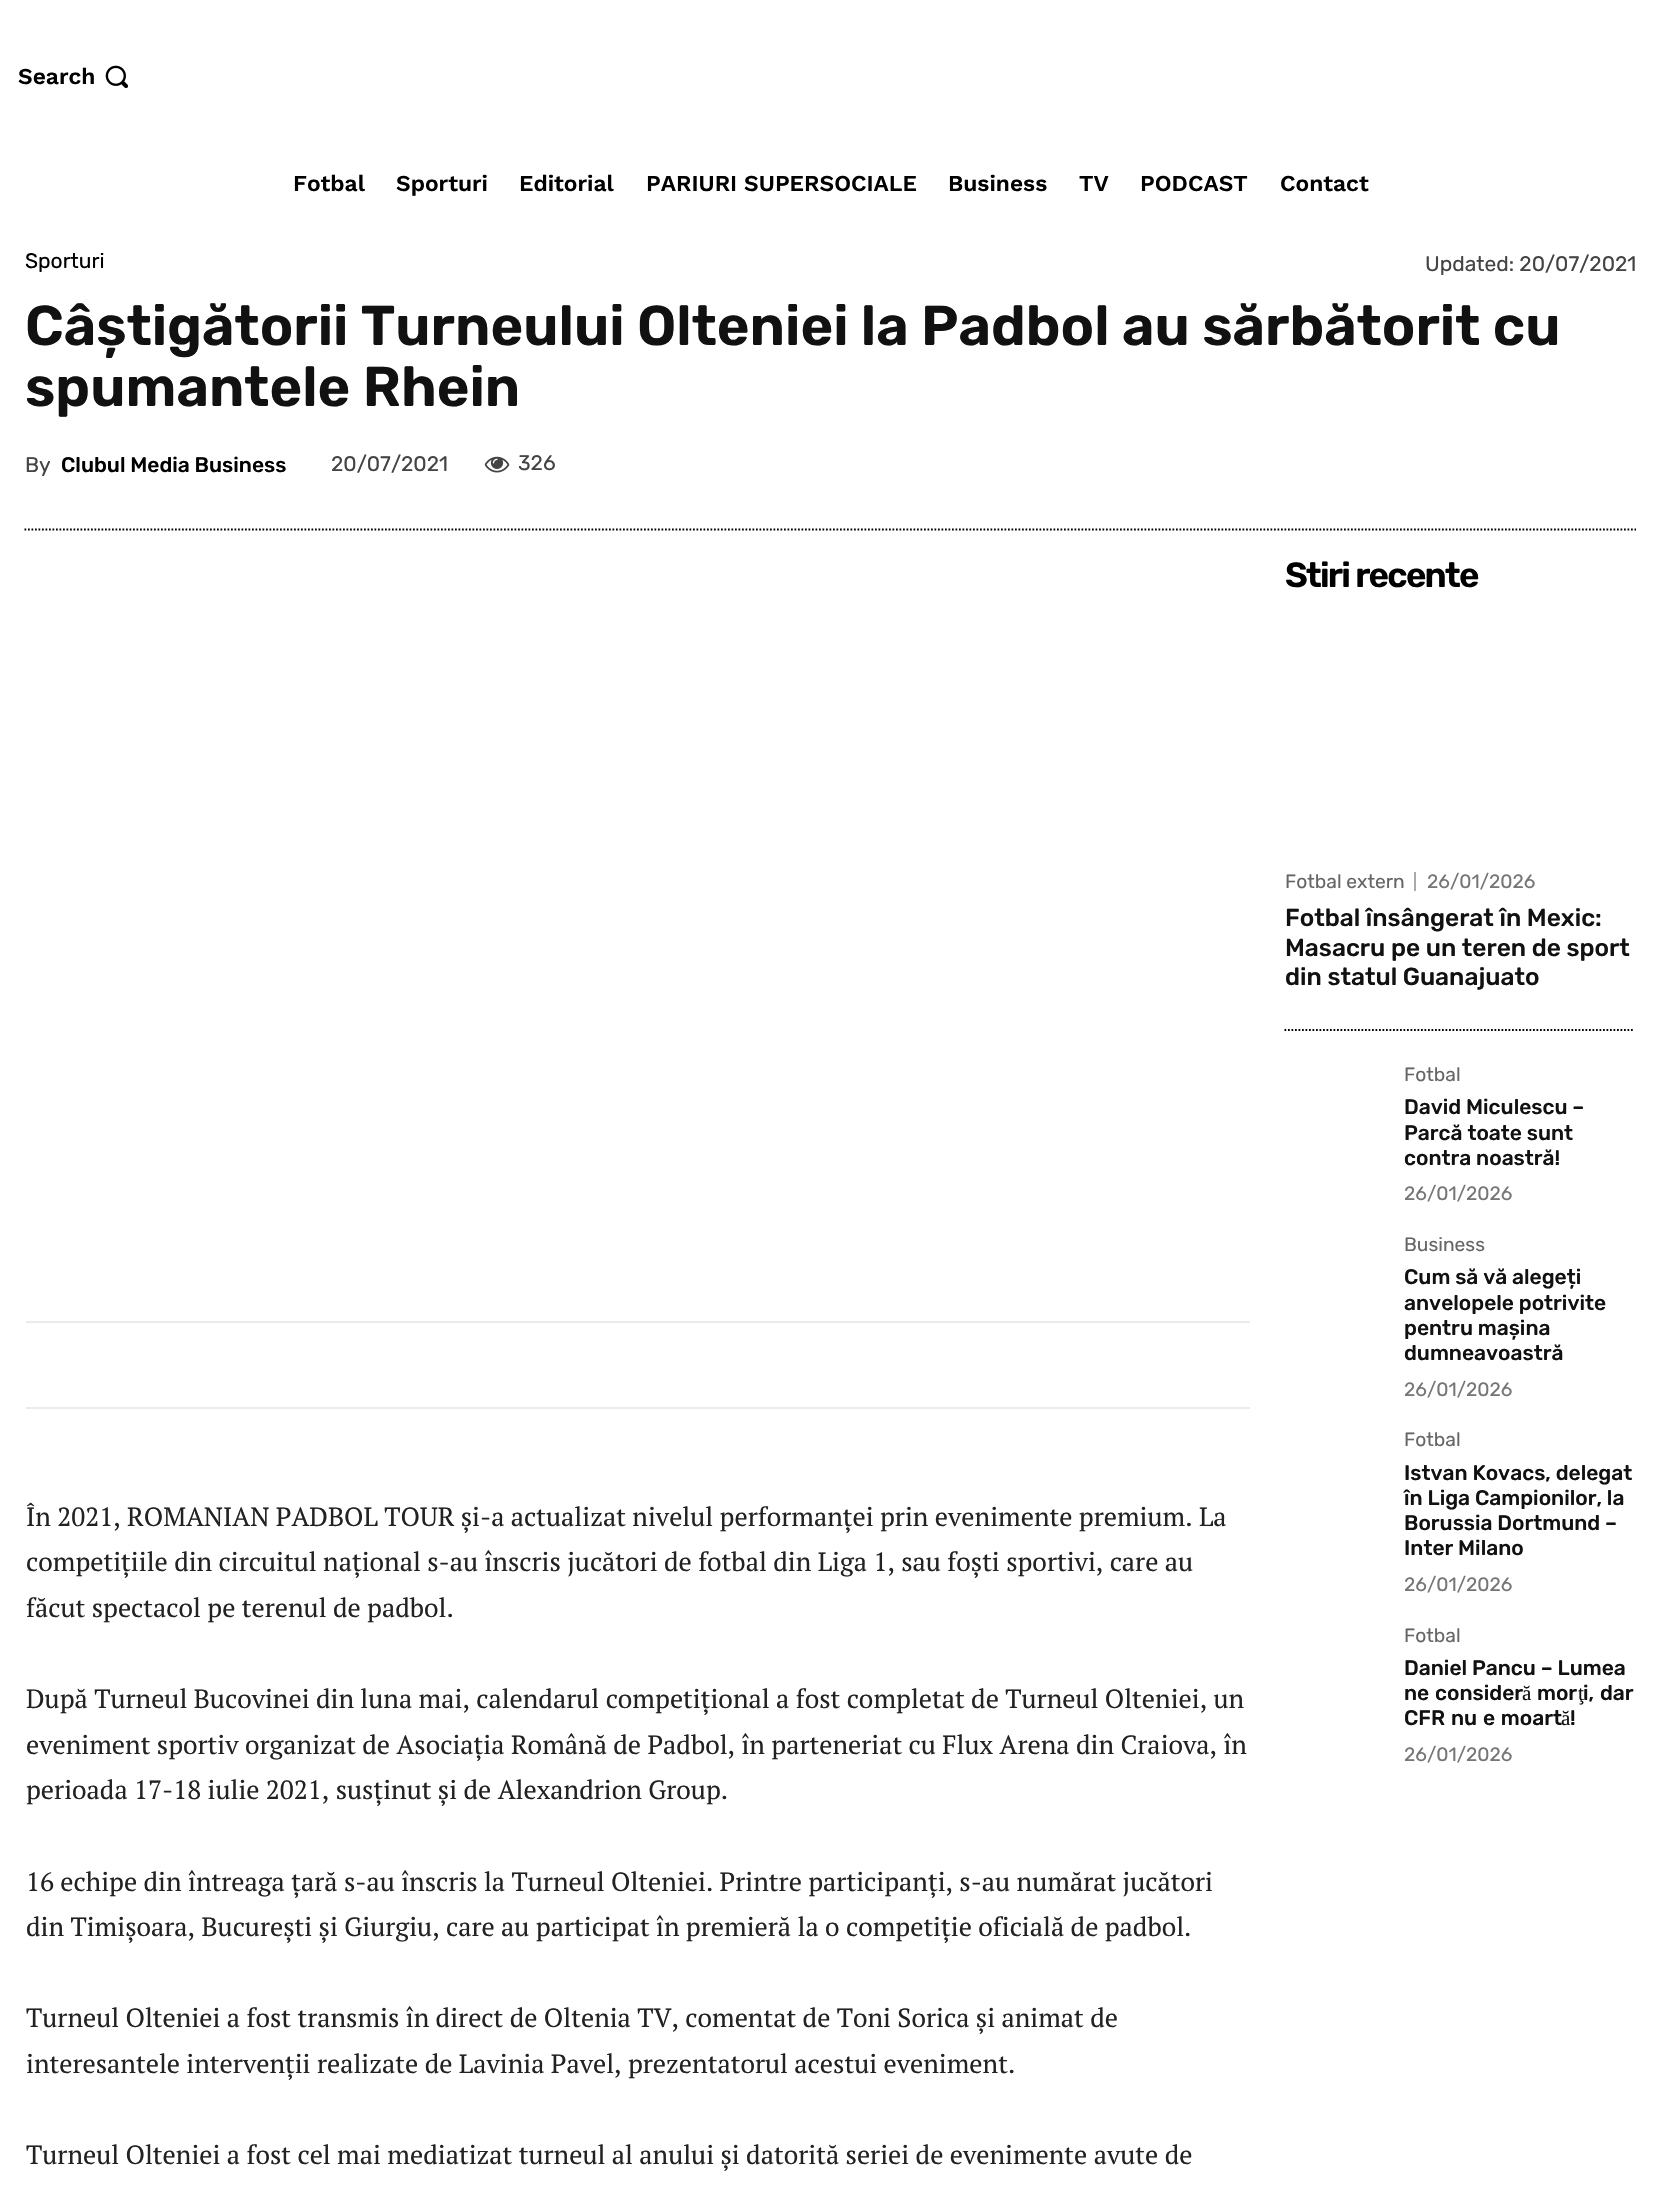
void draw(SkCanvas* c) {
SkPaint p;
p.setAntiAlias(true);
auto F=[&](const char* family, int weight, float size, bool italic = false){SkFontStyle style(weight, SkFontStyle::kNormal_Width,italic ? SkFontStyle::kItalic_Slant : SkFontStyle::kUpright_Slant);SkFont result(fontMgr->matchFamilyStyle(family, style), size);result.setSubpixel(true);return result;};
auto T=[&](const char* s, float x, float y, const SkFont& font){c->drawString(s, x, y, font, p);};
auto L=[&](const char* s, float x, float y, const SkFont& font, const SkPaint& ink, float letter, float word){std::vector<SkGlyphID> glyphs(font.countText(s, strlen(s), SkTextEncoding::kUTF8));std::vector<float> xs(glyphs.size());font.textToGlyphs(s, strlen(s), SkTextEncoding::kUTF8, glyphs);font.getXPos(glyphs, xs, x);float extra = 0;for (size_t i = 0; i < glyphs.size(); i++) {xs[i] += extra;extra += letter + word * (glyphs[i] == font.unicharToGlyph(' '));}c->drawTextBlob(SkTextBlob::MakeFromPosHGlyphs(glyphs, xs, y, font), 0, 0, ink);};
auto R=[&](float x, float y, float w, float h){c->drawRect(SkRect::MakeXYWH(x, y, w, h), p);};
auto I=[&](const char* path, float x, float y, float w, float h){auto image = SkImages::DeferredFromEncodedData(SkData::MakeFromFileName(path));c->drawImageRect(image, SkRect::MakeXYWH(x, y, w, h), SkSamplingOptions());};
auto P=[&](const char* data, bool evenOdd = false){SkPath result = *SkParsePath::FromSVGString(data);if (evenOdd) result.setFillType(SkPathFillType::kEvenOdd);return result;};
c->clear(0xffffffff);
auto f1 = F("Work Sans",600,22.75);
p.setColor(0xff000000);
T("Search",18,84,f1);
I("1.png",105,65,24,24);
T("Fotbal",293,191,f1);
T("Sporturi",396,191,f1);
T("Editorial",519,191,f1);
T("PARIURI SUPERSOCIALE",646,191,f1);
T("Business",948,191,f1);
T("TV",1079,191,f1);
T("PODCAST",1140,191,f1);
T("Contact",1280,191,f1);
auto f2 = F("Rubik",400,21);
T("Sporturi",25,268,f2);
p.setColor(0xff444444);
T("Updated: 20/07/2021",1425,271,f2);
auto f3 = F("Rubik",600,56);
p.setColor(0xff111111);
T("Câștigătorii Turneului Olteniei la Padbol au sărbătorit cu",25,345,f3);
T("spumantele Rhein",25,406,f3);
p.setColor(0xff444444);
T("By",25,472,f2);
auto f4 = F("Rubik",500,21);
p.setColor(0xff000000);
T("Clubul Media Business",61,472,f4);
p.setColor(0xff444444);
T("20/07/2021",331,471,f2);
I("2.png",484,456,26,17);
T("326",518,470,f2);
p.setStroke(true);
p.setStrokeWidth(1.8);
p.setColor(0xff000000);
p.setPathEffect(SkDashPathEffect::Make({{1.75f,1.75f}}, 0));
c->drawPath(P("M24.5 529.5h1611.5"),p);
p.setPathEffect(nullptr);
auto f5 = F("Rubik",600,35);
p.setStroke(false);
L("Stiri recente",1285,587,f5,p,-1.75,0);
p.setStroke(true);
p.setPathEffect(SkDashPathEffect::Make({{1.75f,1.75f}}, 0));
c->drawPath(P("M1284.5 1030h350"),p);
p.setPathEffect(nullptr);
p.setStroke(false);
p.setColor(0xffaaaaaa);
R(1414,872,2,19);
auto f6 = F("Rubik",400,19.25);
p.setColor(0xff666666);
T("Fotbal extern",1285,888,f6);
p.setColor(0xff767676);
T("26/01/2026",1427,888,f6);
auto f7 = F("Rubik",500,24.5);
p.setColor(0xff111111);
T("Fotbal însângerat în Mexic:",1285,926,f7);
T("Masacru pe un teren de sport",1285,956,f7);
T("din statul Guanajuato",1285,985,f7);
p.setColor(0xff666666);
T("Fotbal",1404,1081,f6);
p.setColor(0xff111111);
T("David Miculescu –",1404,1114,f4);
T("Parcă toate sunt",1404,1140,f4);
T("contra noastră!",1404,1165,f4);
p.setColor(0xff767676);
T("26/01/2026",1404,1200,f6);
p.setColor(0xff666666);
T("Business",1404,1251,f6);
p.setColor(0xff111111);
T("Cum să vă alegeți",1404,1284,f4);
T("anvelopele potrivite",1404,1310,f4);
T("pentru mașina",1404,1335,f4);
T("dumneavoastră",1404,1360,f4);
p.setColor(0xff767676);
T("26/01/2026",1404,1396,f6);
p.setColor(0xff666666);
T("Fotbal",1404,1446,f6);
p.setColor(0xff111111);
T("Istvan Kovacs, delegat",1404,1480,f4);
T("în Liga Campionilor, la",1404,1505,f4);
T("Borussia Dortmund –",1404,1530,f4);
T("Inter Milano",1404,1555,f4);
p.setColor(0xff767676);
T("26/01/2026",1404,1591,f6);
p.setColor(0xff666666);
T("Fotbal",1404,1642,f6);
p.setColor(0xff111111);
T("Daniel Pancu – Lumea",1404,1675,f4);
L("ne consider",1404,1700,f4,p,0,1);
auto f8 = F("Liberation Serif",400,21);
T("ă",1522,1700,f8);
T("mor",1537,1700,f4);
T("ţ",1578,1700,f8);
L("i, dar",1583,1700,f4,p,0,1);
L("CFR nu e moart",1404,1725,f4,p,0,1);
T("ă",1561,1725,f8);
T("!",1570,1725,f4);
p.setColor(0xff767676);
T("26/01/2026",1404,1761,f6);
p.setColor(0xffebebeb);
R(26,1321,1224,2);
R(26,1407,1224,2);
auto f9 = F("PT Serif",400,26.25);
p.setColor(0xff222222);
T("În 2021, ROMANIAN PADBOL TOUR și-a actualizat nivelul performanței prin evenimente premium. La",26,1526,f9);
T("competițiile din circuitul național s-au înscris jucători de fotbal din Liga 1, sau foști sportivi, care au",26,1571,f9);
T("făcut spectacol pe terenul de padbol.",26,1617,f9);
T("După Turneul Bucovinei din luna mai, calendarul competițional a fost completat de Turneul Olteniei, un",26,1708,f9);
T("eveniment sportiv organizat de Asociația Română de Padbol, în parteneriat cu Flux Arena din Craiova, în",26,1754,f9);
T("perioada 17-18 iulie 2021, susținut și de Alexandrion Group.",26,1799,f9);
T("16 echipe din întreaga țară s-au înscris la Turneul Olteniei. Printre participanți, s-au numărat jucători",26,1891,f9);
T("din Timișoara, București și Giurgiu, care au participat în premieră la o competiție oficială de padbol.",26,1936,f9);
T("Turneul Olteniei a fost transmis în direct de Oltenia TV, comentat de Toni Sorica și animat de",26,2027,f9);
T("interesantele intervenții realizate de Lavinia Pavel, prezentatorul acestui eveniment.",26,2073,f9);
T("Turneul Olteniei a fost cel mai mediatizat turneul al anului și datorită seriei de evenimente avute de",26,2164,f9);
}
